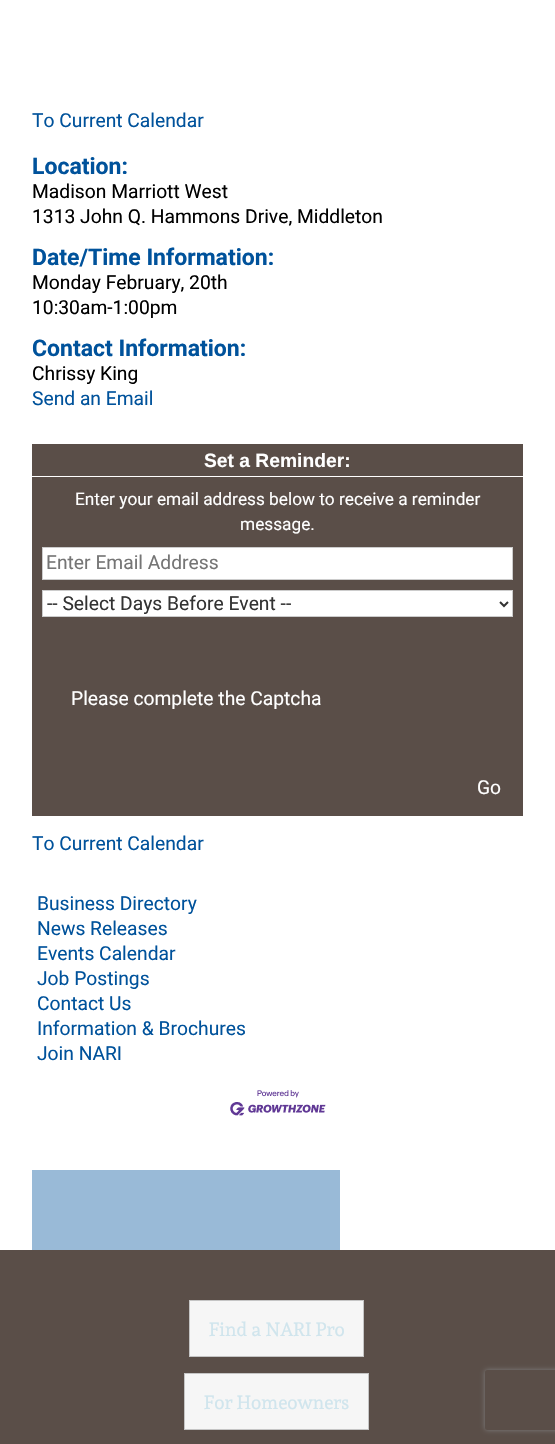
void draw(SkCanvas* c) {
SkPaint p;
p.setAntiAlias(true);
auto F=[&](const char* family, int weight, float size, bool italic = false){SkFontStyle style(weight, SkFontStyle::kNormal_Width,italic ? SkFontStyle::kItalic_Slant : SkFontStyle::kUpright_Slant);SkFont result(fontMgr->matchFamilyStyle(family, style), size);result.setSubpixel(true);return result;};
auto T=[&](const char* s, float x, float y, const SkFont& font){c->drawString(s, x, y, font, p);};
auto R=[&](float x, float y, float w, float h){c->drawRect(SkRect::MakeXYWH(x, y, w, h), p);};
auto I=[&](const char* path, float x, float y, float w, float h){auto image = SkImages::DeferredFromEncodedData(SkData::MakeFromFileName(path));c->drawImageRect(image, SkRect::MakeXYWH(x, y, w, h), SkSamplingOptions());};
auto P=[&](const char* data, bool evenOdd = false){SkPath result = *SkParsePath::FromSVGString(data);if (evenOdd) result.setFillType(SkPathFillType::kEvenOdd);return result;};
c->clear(0xffffffff);
auto f1 = F("Roboto",400,19.25);
p.setColor(0xff00529b);
T("To Current Calendar",32,127,f1);
auto f2 = F("Roboto",700,23);
T("Location:",32,174,f2);
p.setColor(0xff000000);
T("Madison Marriott West",32,198,f1);
T("1313 John Q. Hammons Drive, Middleton",32,223,f1);
p.setColor(0xff00529b);
T("Date/Time Information:",32,265,f2);
p.setColor(0xff000000);
T("Monday February, 20th",32,289,f1);
T("10:30am-1:00pm",32,314,f1);
p.setColor(0xff00529b);
T("Contact Information:",32,356,f2);
p.setColor(0xff000000);
T("Chrissy King",32,380,f1);
p.setColor(0xff00529b);
T("Send an Email",32,405,f1);
p.setColor(0xff5a4e48);
R(32,444,491,372);
p.setColor(0xffffffff);
R(32,476,491,1);
auto f3 = F("Liberation Sans",700,19.25);
T("Set a Reminder:",204,467,f3);
auto f4 = F("Roboto",400,17.25);
T("Enter your email address below to receive a reminder",75,505,f4);
T("message.",240,530,f4);
c->drawRect(SkRect::MakeXYWH(42.5,547.5,470,32),p);
p.setStroke(true);
p.setStrokeWidth(1);
p.setColor(0xffcccccc);
c->drawRect(SkRect::MakeXYWH(42.5,547.5,470,32),p);
p.setStroke(false);
p.setColor(0xff757575);
T("Enter Email Address",46,569,f1);
p.setColor(0xffffffff);
c->drawRect(SkRect::MakeXYWH(42.5,590.5,470,26),p);
p.setStroke(true);
p.setColor(0xffcccccc);
c->drawRect(SkRect::MakeXYWH(42.5,590.5,470,26),p);
p.setStrokeWidth(2);
p.setColor(0xff333333);
c->drawPath(P("M500 602l4 4l4-4"),p);
p.setStroke(false);
T("-- Select Days Before Event --",47,610,f1);
p.setColor(0xffffffff);
T("Please complete the Captcha",71,705,f1);
T("Go",477,794,f1);
p.setColor(0xff00529b);
T("To Current Calendar",32,850,f1);
T("Business Directory",37,910,f1);
T("News Releases",37,935,f1);
T("Events Calendar",37,960,f1);
T("Job Postings",37,985,f1);
T("Contact Us",37,1010,f1);
T("Information & Brochures",37,1035,f1);
T("Join NARI",37,1060,f1);
I("1.png",230,1090,96,26);
p.setColor(0xff99bad7);
R(32,1170,308,80);
p.setColor(0xff5a4e48);
R(0,1250,555,194);
p.setColor(0xfff6f6f6);
c->drawRect(SkRect::MakeXYWH(189.5,1300.5,174,56),p);
p.setStroke(true);
p.setStrokeWidth(1);
p.setColor(0xffc5c5c5);
c->drawRect(SkRect::MakeXYWH(189.5,1300.5,174,56),p);
auto f5 = F("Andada",400,19);
p.setStroke(false);
p.setColor(0xffd0e5ed);
T("Find a NARI Pro",209,1336,f5);
p.setColor(0xfff6f6f6);
c->drawRect(SkRect::MakeXYWH(184.5,1373.5,184,56),p);
p.setStroke(true);
p.setColor(0xffc5c5c5);
c->drawRect(SkRect::MakeXYWH(184.5,1373.5,184,56),p);
p.setStroke(false);
p.setColor(0xffd0e5ed);
T("For Homeowners",204,1409,f5);
c->save();
c->clipPath(P("M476 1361h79v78h-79zm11 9h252c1 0 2 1 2 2v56c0 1-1 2-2 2h-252c-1 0-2-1-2-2v-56c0-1 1-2 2-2z",true),true);
p.setColor(0xff808080);
p.setMaskFilter(SkMaskFilter::MakeBlur(kNormal_SkBlurStyle, 2.5));
c->drawRoundRect(SkRect::MakeXYWH(485,1370,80,60),2,2,p);
p.setMaskFilter(nullptr);
c->restore();
}
